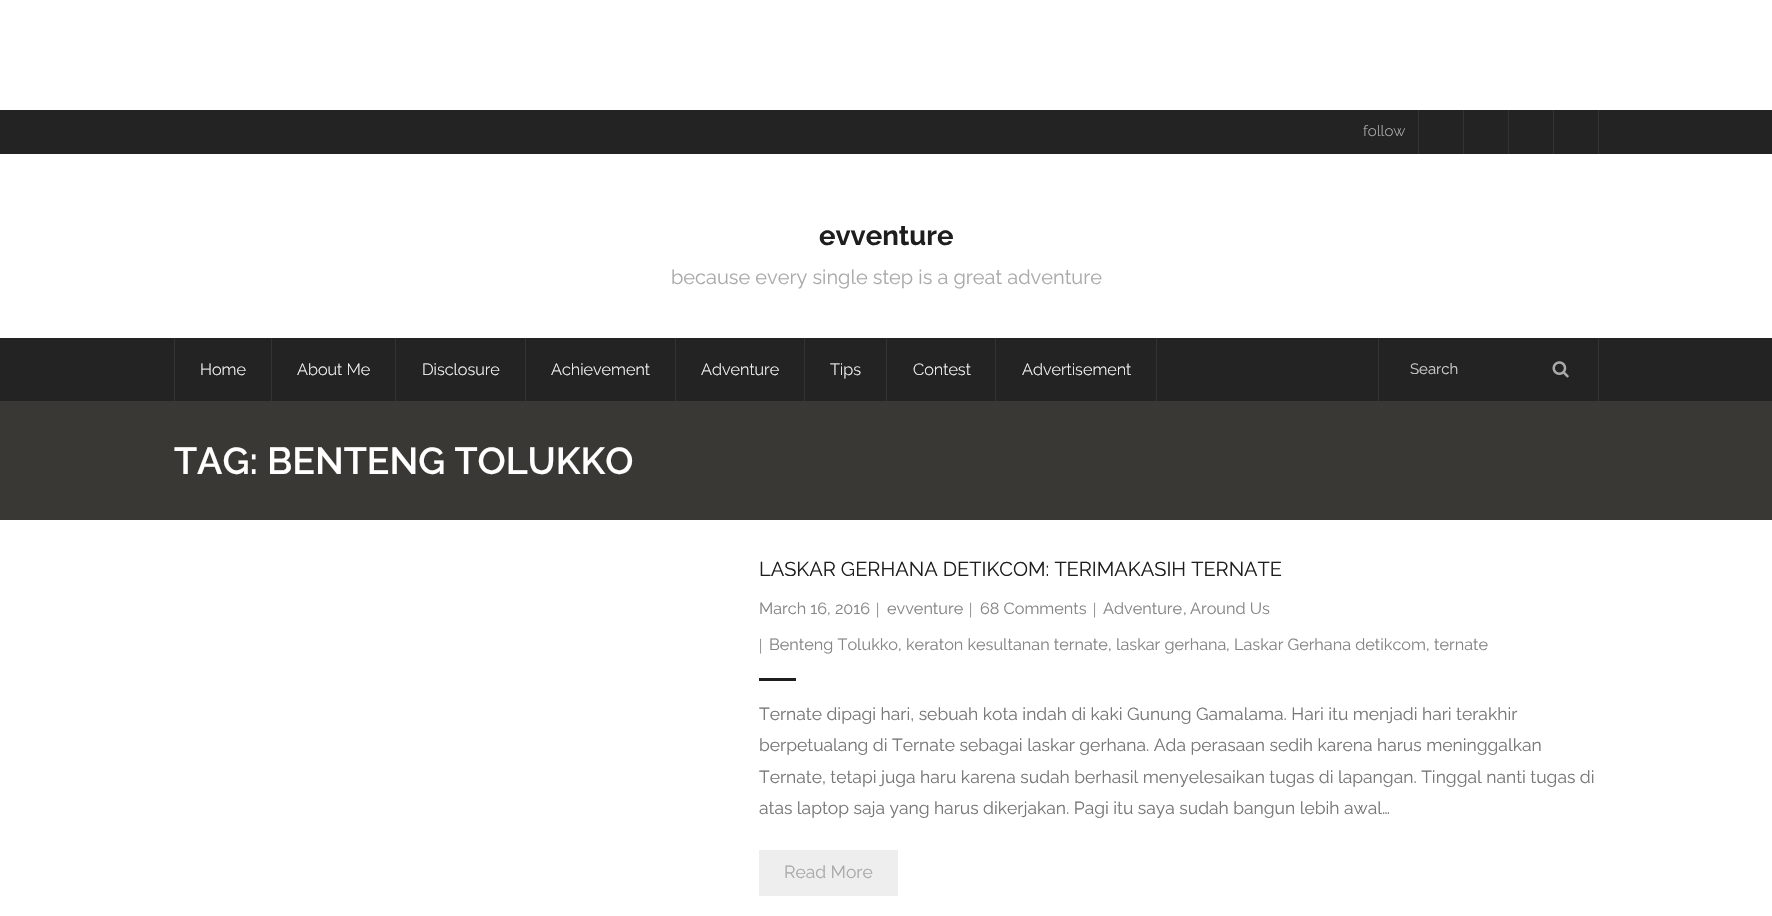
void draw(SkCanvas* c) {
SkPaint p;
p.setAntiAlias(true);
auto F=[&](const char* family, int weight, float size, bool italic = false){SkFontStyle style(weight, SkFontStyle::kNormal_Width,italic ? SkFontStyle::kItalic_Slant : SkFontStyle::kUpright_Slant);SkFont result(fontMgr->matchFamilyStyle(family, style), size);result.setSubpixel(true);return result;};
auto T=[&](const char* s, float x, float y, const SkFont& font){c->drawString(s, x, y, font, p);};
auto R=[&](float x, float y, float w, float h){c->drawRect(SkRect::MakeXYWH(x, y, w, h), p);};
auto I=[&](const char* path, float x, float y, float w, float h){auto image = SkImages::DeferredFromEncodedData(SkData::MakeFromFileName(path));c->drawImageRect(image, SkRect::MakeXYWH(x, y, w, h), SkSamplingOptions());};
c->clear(0xffffffff);
p.setColor(0xff232323);
R(0,110,1772,44);
auto f1 = F("Raleway",300,15);
p.setColor(0xffb3b3b3);
T("follow",1363,136,f1);
p.setColor(0xff333333);
R(1418,110,1,44);
R(1463,110,1,44);
R(1508,110,1,44);
R(1598,110,1,44);
R(1553,110,1,44);
auto f2 = F("Raleway",700,27.5);
p.setColor(0xff1e1e1e);
T("evventure",819,245,f2);
auto f3 = F("Raleway",400,20);
p.setColor(0xffaaaaaa);
T("because every single step is a great adventure",671,284,f3);
p.setColor(0xff232323);
R(0,338,1772,63);
p.setColor(0xff333333);
R(174,338,1,63);
auto f4 = F("Raleway",300,16.25);
p.setColor(0xffffffff);
T("Home",200,375,f4);
p.setColor(0xff333333);
R(271,338,1,63);
p.setColor(0xffffffff);
T("About Me",297,375,f4);
p.setColor(0xff333333);
R(395,338,1,63);
p.setColor(0xffffffff);
T("Disclosure",422,375,f4);
p.setColor(0xff333333);
R(525,338,1,63);
p.setColor(0xffffffff);
T("Achievement",551,375,f4);
p.setColor(0xff333333);
R(675,338,1,63);
p.setColor(0xffffffff);
T("Adventure",701,375,f4);
p.setColor(0xff333333);
R(804,338,1,63);
p.setColor(0xffffffff);
T("Tips",830,375,f4);
p.setColor(0xff333333);
R(886,338,1,63);
p.setColor(0xffffffff);
T("Contest",913,375,f4);
p.setColor(0xff333333);
R(1156,338,1,63);
R(995,338,1,63);
p.setColor(0xffffffff);
T("Advertisement",1022,375,f4);
p.setColor(0xff333333);
R(1598,338,1,63);
R(1378,338,1,63);
auto f5 = F("Raleway",400,15);
p.setColor(0xffcacaca);
T("Search",1410,374,f5);
I("1.png",1552,361,17,17);
p.setColor(0xff3a3835);
R(0,401,1772,119);
auto f6 = F("Raleway",600,37.5);
p.setColor(0xffffffff);
T("TAG: BENTENG TOLUKKO",174,474,f6);
p.setColor(0xff1e1e1e);
T("LASKAR GERHANA DETIKCOM: TERIMAKASIH TERNATE",759,576,f3);
auto f7 = F("Raleway",400,16.25);
p.setColor(0xff858585);
T("March 16, 2016",759,614,f7);
auto f8 = F("Liberation Serif",400,16.25);
T("|",876,614,f8);
T("evventure",887,614,f7);
T("|",969,614,f8);
T("68 Comments",980,614,f7);
T("|",1093,614,f8);
T("Adventure",1103,614,f7);
p.setColor(0xff777777);
T(",",1183,614,f7);
p.setColor(0xff858585);
T("Around Us",1190,614,f7);
T("|",759,650,f8);
T("Benteng Tolukko",769,650,f7);
p.setColor(0xff777777);
T(",",898,650,f7);
p.setColor(0xff858585);
T("keraton kesultanan ternate",906,650,f7);
p.setColor(0xff777777);
T(",",1108,650,f7);
p.setColor(0xff858585);
T("laskar gerhana",1116,650,f7);
p.setColor(0xff777777);
T(",",1226,650,f7);
p.setColor(0xff858585);
T("Laskar Gerhana detikcom",1234,650,f7);
p.setColor(0xff777777);
T(",",1426,650,f7);
p.setColor(0xff858585);
T("ternate",1434,650,f7);
p.setColor(0xff1e1e1e);
R(759,678,37,3);
auto f9 = F("Raleway",400,17.5);
p.setColor(0xff777777);
T("Ternate dipagi hari, sebuah kota indah di kaki Gunung Gamalama. Hari itu menjadi hari terakhir",759,720,f9);
T("berpetualang di Ternate sebagai laskar gerhana. Ada perasaan sedih karena harus meninggalkan",759,751,f9);
T("Ternate, tetapi juga haru karena sudah berhasil menyelesaikan tugas di lapangan. Tinggal nanti tugas di",759,783,f9);
T("atas laptop saja yang harus dikerjakan. Pagi itu saya sudah bangun lebih awal…",759,814,f9);
p.setColor(0xffeeeeee);
R(759,850,139,46);
p.setColor(0xffaaaaaa);
T("Read More",784,878,f9);
}
